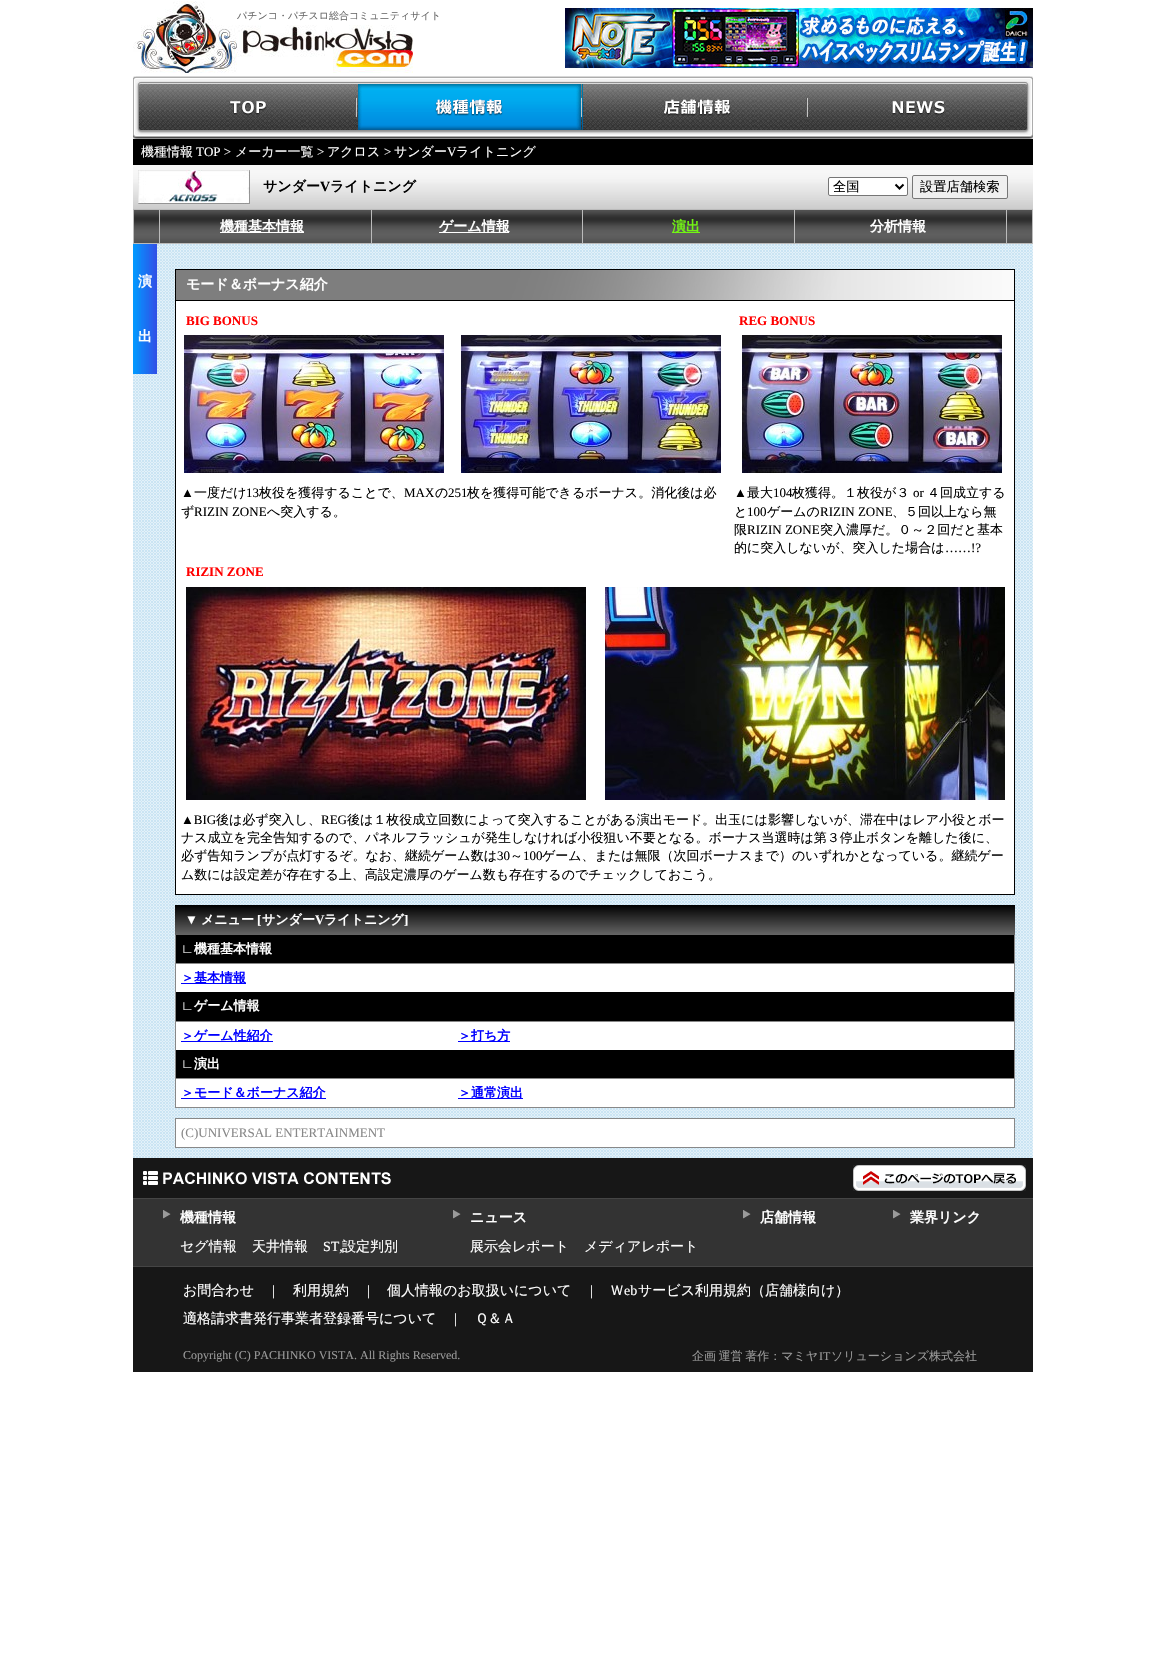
void draw(SkCanvas* c) {
SkPaint p;
p.setAntiAlias(true);
auto F=[&](const char* family, int weight, float size, bool italic = false){SkFontStyle style(weight, SkFontStyle::kNormal_Width,italic ? SkFontStyle::kItalic_Slant : SkFontStyle::kUpright_Slant);SkFont result(fontMgr->matchFamilyStyle(family, style), size);result.setSubpixel(true);return result;};
auto T=[&](const char* s, float x, float y, const SkFont& font){c->drawString(s, x, y, font, p);};
auto L=[&](const char* s, float x, float y, const SkFont& font, const SkPaint& ink, float letter, float word){std::vector<SkGlyphID> glyphs(font.countText(s, strlen(s), SkTextEncoding::kUTF8));std::vector<float> xs(glyphs.size());font.textToGlyphs(s, strlen(s), SkTextEncoding::kUTF8, glyphs);font.getXPos(glyphs, xs, x);float extra = 0;for (size_t i = 0; i < glyphs.size(); i++) {xs[i] += extra;extra += letter + word * (glyphs[i] == font.unicharToGlyph(' '));}c->drawTextBlob(SkTextBlob::MakeFromPosHGlyphs(glyphs, xs, y, font), 0, 0, ink);};
auto R=[&](float x, float y, float w, float h){c->drawRect(SkRect::MakeXYWH(x, y, w, h), p);};
auto I=[&](const char* path, float x, float y, float w, float h){auto image = SkImages::DeferredFromEncodedData(SkData::MakeFromFileName(path));c->drawImageRect(image, SkRect::MakeXYWH(x, y, w, h), SkSamplingOptions());};
auto P=[&](const char* data, bool evenOdd = false){SkPath result = *SkParsePath::FromSVGString(data);if (evenOdd) result.setFillType(SkPathFillType::kEvenOdd);return result;};
c->clear(0xffffffff);
I("1.png",133,1,104,72);
auto f1 = F("WenQuanYi Zen Hei",500,10);
p.setColor(0xff696969);
T("パチンコ・パチスロ総合コミュニティサイト",237,19,f1);
I("2.png",237,25,176,48);
I("3.png",565,8,468,60);
I("4.png",133,76,900,63);
I("5.png",358,84,225,46);
p.setColor(0xff000000);
R(133,139,900,26);
auto f2 = F("WenQuanYi Zen Hei",500,13);
p.setColor(0xffffffff);
T("機種情報",141,156,f2);
auto f3 = F("Liberation Serif",400,13);
T("TOP >",196,156,f3);
T("メーカー一覧",235,156,f2);
T(">",317,156,f3);
T("アクロス",327,156,f2);
T(">",384,156,f3);
T("サンダー",394,156,f2);
T("V",447,156,f3);
T("ライトニング",456,156,f2);
I("6.png",133,165,900,44);
I("7.png",138,170,112,34);
auto f4 = F("WenQuanYi Zen Hei",700,14);
p.setColor(0xff000000);
T("サンダー",263,191,f4);
auto f5 = F("Liberation Serif",700,14);
T("V",320,191,f5);
T("ライトニング",330,191,f4);
p.setColor(0xffffffff);
c->drawRoundRect(SkRect::MakeXYWH(828.5,177.5,79,18),1.5,1.5,p);
p.setStroke(true);
p.setStrokeWidth(1);
p.setColor(0xff767676);
c->drawRoundRect(SkRect::MakeXYWH(828.5,177.5,79,18),1.5,1.5,p);
p.setStrokeWidth(2);
p.setColor(0xff000000);
c->drawPath(P("M895.5 184.5l4 4l4-4"),p);
auto f6 = F("WenQuanYi Zen Hei",500,13.25);
p.setStroke(false);
T("全国",833,191,f6);
p.setColor(0xffefefef);
c->drawRoundRect(SkRect::MakeXYWH(912.5,175.5,95,23),1.5,1.5,p);
p.setStroke(true);
p.setStrokeWidth(1);
p.setColor(0xff767676);
c->drawRoundRect(SkRect::MakeXYWH(912.5,175.5,95,23),1.5,1.5,p);
p.setStroke(false);
p.setColor(0xff000000);
T("設置店舗検索",920,191,f6);
I("8.png",134,210,899,34);
p.setColor(0xffbbbbbb);
R(133,209,900,1);
R(133,209,1,35);
p.setColor(0xffffffff);
R(220,232,84,1);
T("機種基本情報",220,231,f4);
R(439,232,70,1);
T("ゲーム情報",439,231,f4);
p.setColor(0xff72f513);
R(672,232,28,1);
T("演出",672,231,f4);
p.setColor(0xffffffff);
T("分析情報",870,231,f4);
I("9.png",133,244,900,914);
I("10.png",133,244,24,130);
T("演",138,286,f4);
T("出",138,341,f4);
p.setColor(0xff000000);
R(175,269,840,626);
I("11.png",176,270,838,30);
p.setColor(0xffffffff);
T("モード＆ボーナス紹介",186,289,f4);
R(176,301,838,593);
auto f7 = F("Liberation Serif",700,13);
p.setColor(0xffff0000);
T("BIG BONUS",186,325,f7);
T("REG BONUS",739,325,f7);
I("12.png",184,335,260,138);
I("13.png",461,335,260,138);
I("14.png",742,335,260,138);
p.setColor(0xff000000);
T("▲",181,497,f3);
T("一度だけ",194,497,f2);
T("13",246,497,f3);
T("枚役を獲得することで、",259,497,f2);
T("MAX",404,497,f3);
T("の",435,497,f2);
T("251",448,497,f3);
T("枚を獲得可能できるボーナス。消化後は必",467,497,f2);
T("ず",181,516,f2);
T("RIZIN ZONE",194,516,f3);
T("へ突入する。",267,516,f2);
T("▲",734,497,f3);
T("最大",747,497,f2);
T("104",773,497,f3);
T("枚獲得。１枚役が３",792,497,f2);
T("or",913,497,f3);
T("４回成立する",927,497,f2);
T("と",734,516,f2);
T("100",747,516,f3);
T("ゲームの",767,516,f2);
T("RIZIN ZONE",820,516,f3);
T("、５回以上なら無",892,516,f2);
T("限",734,534,f2);
T("RIZIN ZONE",747,534,f3);
T("突入濃厚だ。０～２回だと基本",820,534,f2);
T("的に突入しないが、突入した場合は",734,552,f2);
T("……!?",945,552,f3);
p.setColor(0xffff0000);
T("RIZIN ZONE",186,576,f7);
I("15.png",186,587,400,213);
I("16.png",605,587,400,213);
p.setColor(0xff000000);
T("▲BIG",181,824,f3);
T("後は必ず突入し、",216,824,f2);
T("REG",321,824,f3);
T("後は１枚役成立回数によって突入することがある演出モード。出玉には影響しないが、滞在中はレア小役とボー",347,824,f2);
T("ナス成立を完全告知するので、パネルフラッシュが発生しなければ小役狙い不要となる。ボーナス当選時は第３停止ボタンを離した後に、",181,842,f2);
T("必ず告知ランプが点灯するぞ。なお、継続ゲーム数は",181,860,f2);
T("30",497,860,f3);
T("～",510,860,f2);
T("100",523,860,f3);
T("ゲーム、または無限（次回ボーナスまで）のいずれかとなっている。継続ゲー",542,860,f2);
T("ム数には設定差が存在する上、高設定濃厚のゲーム数も存在するのでチェックしておこう。",181,879,f2);
p.setColor(0xffffffff);
R(176,964,838,143);
{
const SkColor colors[] = {0xff000000,0xff666666};
const float stops[] = {0,1};
const SkPoint ends[] = {{595,905}, {595,935}};
p.setShader(SkGradientShader::MakeLinear(ends, colors, stops, 2, SkTileMode::kClamp));
p.setAlpha(255);
}
R(175,905,840,30);
p.setShader(nullptr);
p.setColor(0xffffffff);
T("▼",185,924,f7);
auto f8 = F("WenQuanYi Zen Hei",700,13);
T("メニュー",201,924,f8);
T("[",257,924,f7);
T("サンダー",262,924,f8);
T("V",315,924,f7);
T("ライトニング",324,924,f8);
T("]",404,924,f7);
p.setColor(0xff888888);
R(1014,935,1,173);
R(175,1107,840,1);
R(175,935,1,173);
p.setColor(0xff000000);
R(176,935,838,28);
p.setColor(0xffffffff);
T("∟",181,953,f7);
T("機種基本情報",194,953,f8);
p.setColor(0xff888888);
R(176,963,838,1);
p.setColor(0xff0100fe);
R(181,983,65,1);
T("＞基本情報",181,982,f8);
p.setColor(0xff000000);
R(176,992,838,29);
p.setColor(0xffffffff);
T("∟",181,1010,f7);
T("ゲーム情報",194,1010,f8);
p.setColor(0xff888888);
R(176,1021,838,1);
p.setColor(0xff0100fe);
R(181,1041,92,1);
T("＞ゲーム性紹介",181,1040,f8);
R(458,1041,52,1);
T("＞打ち方",458,1040,f8);
p.setColor(0xff000000);
R(176,1050,838,28);
p.setColor(0xffffffff);
T("∟",181,1068,f7);
T("演出",194,1068,f8);
p.setColor(0xff888888);
R(176,1078,838,1);
p.setColor(0xff0100fe);
R(181,1098,145,1);
T("＞モード＆ボーナス紹介",181,1097,f8);
R(458,1098,65,1);
T("＞通常演出",458,1097,f8);
p.setColor(0xffffffff);
c->drawRect(SkRect::MakeXYWH(175.5,1118.5,839,29),p);
p.setStroke(true);
p.setColor(0xff888888);
c->drawRect(SkRect::MakeXYWH(175.5,1118.5,839,29),p);
p.setStroke(false);
T("(C)UNIVERSAL ENTERTAINMENT",181,1137,f3);
p.setColor(0xff171717);
R(133,1158,900,40);
p.setColor(0xff454545);
R(133,1198,900,1);
I("17.png",143,1171,248,14);
I("18.png",853,1165,173,26);
p.setColor(0xff333333);
R(133,1199,900,67);
I("19.png",163,1210,8,9);
p.setColor(0xffffffff);
T("機種情報",180,1222,f4);
auto f9 = F("WenQuanYi Zen Hei",500,14);
T("セグ情報",180,1251,f9);
T("天井情報",252,1251,f9);
auto f10 = F("Liberation Serif",400,14);
T("ST,",323,1251,f10);
T("設定判別",342,1251,f9);
I("19.png",453,1210,8,9);
T("ニュース",470,1222,f4);
T("展示会レポート",470,1251,f9);
T("メディアレポート",584,1251,f9);
I("19.png",743,1210,8,9);
T("店舗情報",760,1222,f4);
I("19.png",893,1210,8,9);
T("業界リンク",910,1222,f4);
p.setColor(0xff171717);
R(133,1267,900,105);
p.setColor(0xff454545);
R(133,1266,900,1);
p.setColor(0xffffffff);
T("お問合わせ",183,1295,f9);
T("｜",267,1295,f2);
T("利用規約",293,1295,f9);
T("｜",362,1295,f2);
T("個人情報のお取扱いについて",387,1295,f9);
T("｜",585,1295,f2);
T("Ｗ",610,1295,f9);
T("eb",624,1295,f10);
T("サービス利用規約（店舗様向け）",638,1295,f9);
T("適格請求書発行事業者登録番号について",183,1323,f9);
T("｜",449,1323,f2);
T("Ｑ＆Ａ",475,1323,f9);
auto f11 = F("Liberation Serif",400,12);
p.setColor(0xff999999);
T("Copyright (C) PACHINKO VISTA. All Rights Reserved.",183,1359,f11);
auto f12 = F("WenQuanYi Zen Hei",500,12);
L("企画 運営 著作：マミヤ",692,1360,f12,p,0,-1);
T("IT",819,1360,f11);
T("ソリューションズ株式会社",831,1360,f12);
}
